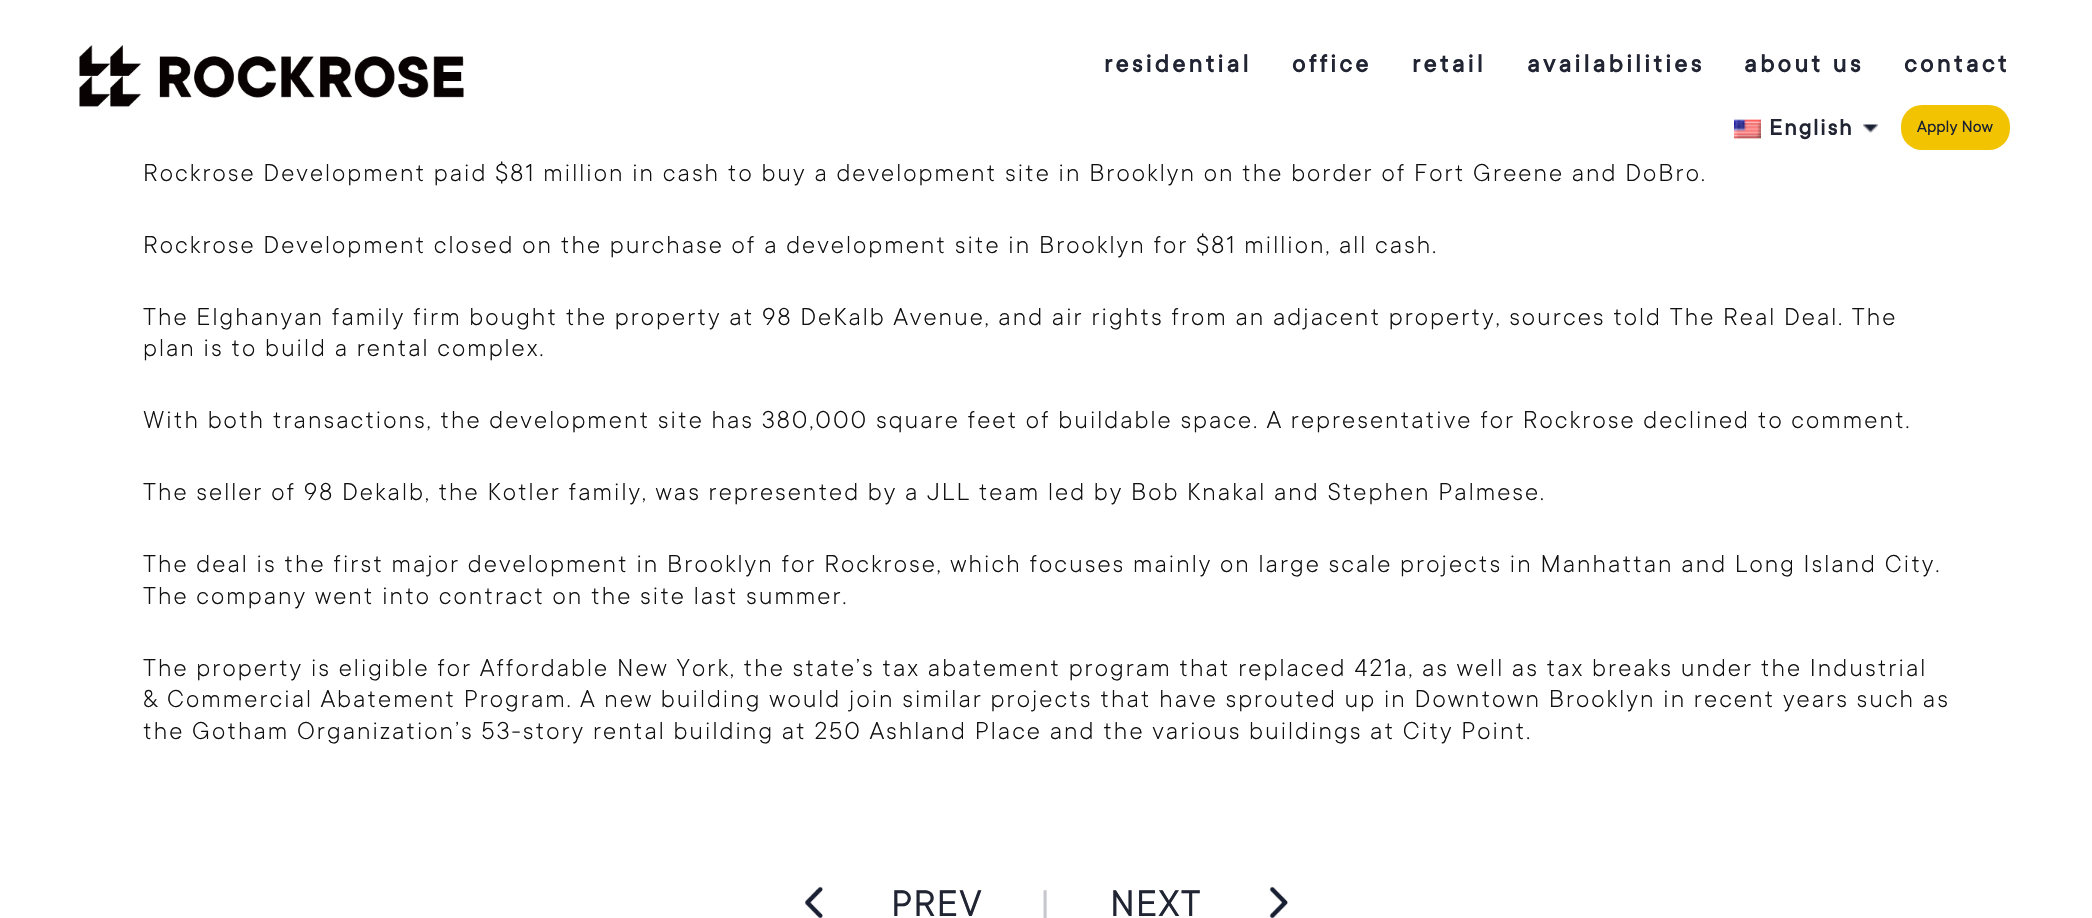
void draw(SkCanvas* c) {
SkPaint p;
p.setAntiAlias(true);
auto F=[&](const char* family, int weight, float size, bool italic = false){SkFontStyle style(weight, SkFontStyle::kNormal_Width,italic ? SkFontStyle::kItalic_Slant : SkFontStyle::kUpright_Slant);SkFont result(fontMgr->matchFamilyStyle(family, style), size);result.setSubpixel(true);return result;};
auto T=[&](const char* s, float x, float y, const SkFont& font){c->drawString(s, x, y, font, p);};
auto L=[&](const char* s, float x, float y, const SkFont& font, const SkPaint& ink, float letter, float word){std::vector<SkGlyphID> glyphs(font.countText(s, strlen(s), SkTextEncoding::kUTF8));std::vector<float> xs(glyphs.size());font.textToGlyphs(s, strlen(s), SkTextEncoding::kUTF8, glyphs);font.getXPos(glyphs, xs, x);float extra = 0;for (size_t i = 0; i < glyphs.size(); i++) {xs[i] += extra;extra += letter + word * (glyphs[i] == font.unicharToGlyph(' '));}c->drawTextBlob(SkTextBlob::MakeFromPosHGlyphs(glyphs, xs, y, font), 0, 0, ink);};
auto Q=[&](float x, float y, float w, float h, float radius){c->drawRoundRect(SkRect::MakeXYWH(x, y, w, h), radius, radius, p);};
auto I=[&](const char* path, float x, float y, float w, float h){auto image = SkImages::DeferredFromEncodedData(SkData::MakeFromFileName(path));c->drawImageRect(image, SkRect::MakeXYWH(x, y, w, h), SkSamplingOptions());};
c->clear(0xffffffff);
I("1.png",79,45,385,62);
auto f1 = F("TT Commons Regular",700,27);
p.setColor(0xff212533);
L("residential",1104,72,f1,p,3.4,0);
L("office",1292,72,f1,p,3.4,0);
L("retail",1412,72,f1,p,3.4,0);
L("availabilities",1527,72,f1,p,3.4,0);
L("about us",1744,72,f1,p,3.4,0);
L("contact",1904,72,f1,p,3.4,0);
p.setColor(0xfff1c300);
Q(1901,105,109,45,21);
auto f2 = F("TT Commons Regular",400,18);
p.setColor(0xff1a2033);
T("Apply Now",1917,132,f2);
auto f3 = F("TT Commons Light",300,27);
p.setColor(0xff111111);
L("Rockrose Development paid $81 million in cash to buy a development site in Brooklyn on the border of Fort Greene and DoBro.",143,181,f3,p,2.03,0);
L("Rockrose Development closed on the purchase of a development site in Brooklyn for $81 million, all cash.",143,253,f3,p,2.03,0);
L("The Elghanyan family firm bought the property at 98 DeKalb Avenue, and air rights from an adjacent property, sources told The Real Deal. The",143,325,f3,p,2.03,0);
L("plan is to build a rental complex.",143,356,f3,p,2.03,0);
L("With both transactions, the development site has 380,000 square feet of buildable space. A representative for Rockrose declined to comment.",143,428,f3,p,2.03,0);
L("The seller of 98 Dekalb, the Kotler family, was represented by a JLL team led by Bob Knakal and Stephen Palmese.",143,500,f3,p,2.03,0);
L("The deal is the first major development in Brooklyn for Rockrose, which focuses mainly on large scale projects in Manhattan and Long Island City.",143,572,f3,p,2.03,0);
L("The company went into contract on the site last summer.",143,604,f3,p,2.03,0);
L("The property is eligible for Affordable New York, the state’s tax abatement program that replaced 421a, as well as tax breaks under the Industrial",143,676,f3,p,2.03,0);
L("& Commercial Abatement Program. A new building would join similar projects that have sprouted up in Downtown Brooklyn in recent years such as",143,707,f3,p,2.03,0);
L("the Gotham Organization’s 53-story rental building at 250 Ashland Place and the various buildings at City Point.",143,739,f3,p,2.03,0);
I("2.png",804,886,19,32);
auto f4 = F("TT Commons Light",700,39);
p.setColor(0xff212533);
L("PREV",891,916,f4,p,2.03,0);
p.setColor(0xffc6c7cc);
L("|",1039,916,f4,p,3,0);
p.setColor(0xff212533);
L("NEXT",1110,916,f4,p,2.03,0);
I("3.png",1269,886,19,32);
I("4.png",1734,119,27,20);
auto f5 = F("TT Commons Regular",700,24.5);
L("English",1769,135,f5,p,2.03,0);
I("5.png",1863,124,15,9);
}
